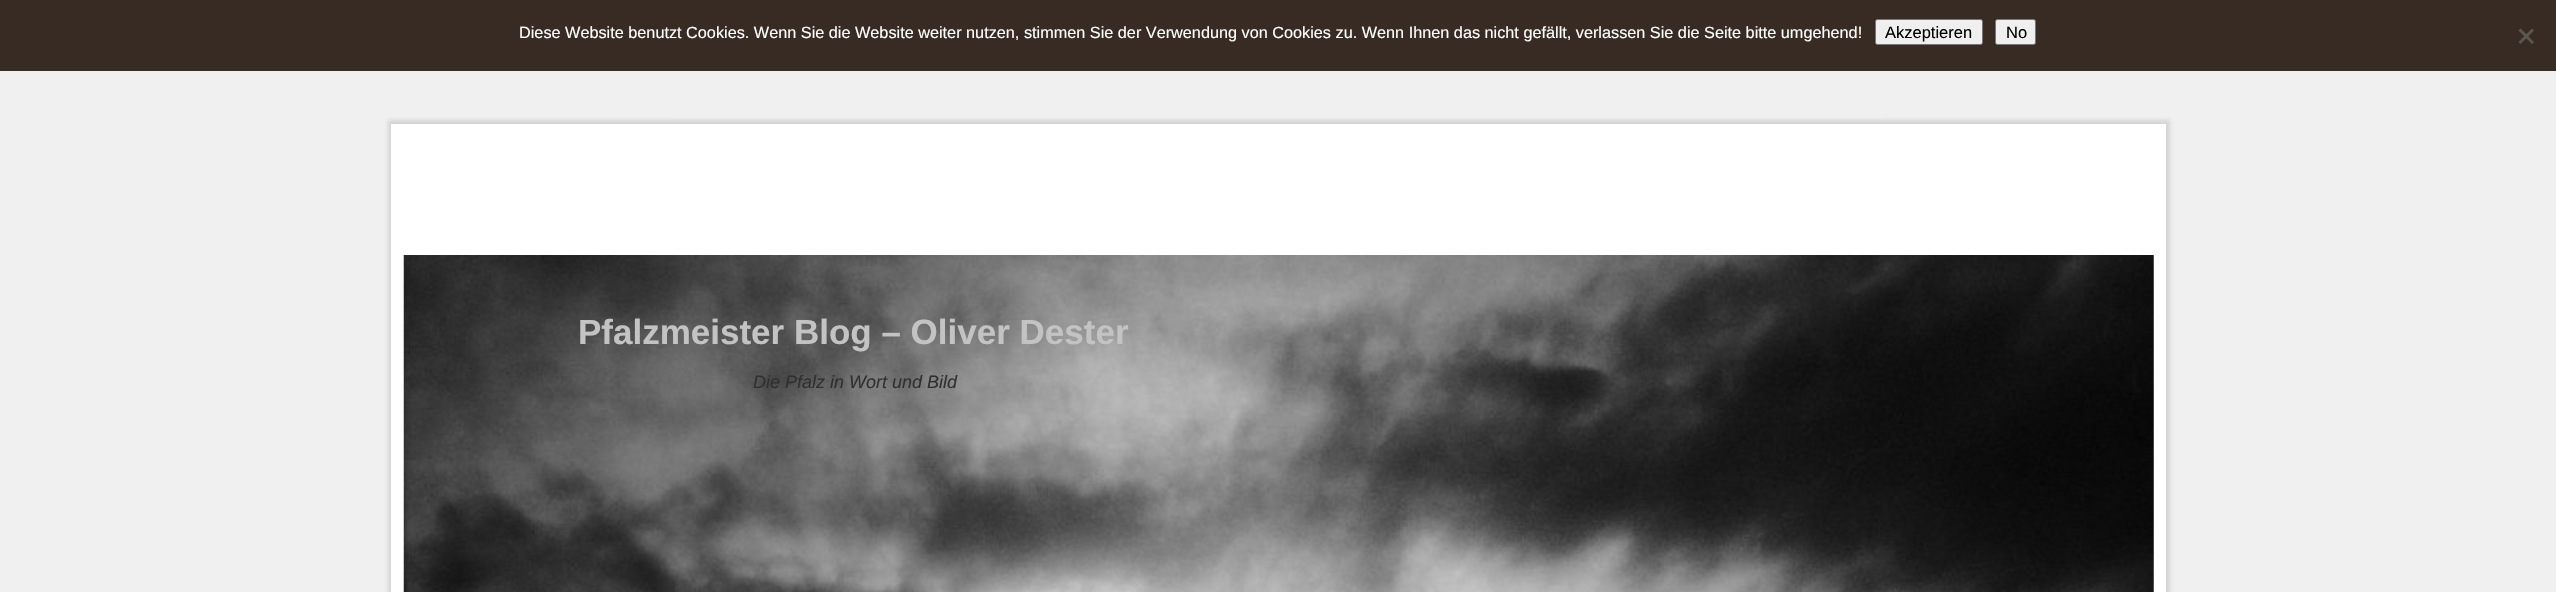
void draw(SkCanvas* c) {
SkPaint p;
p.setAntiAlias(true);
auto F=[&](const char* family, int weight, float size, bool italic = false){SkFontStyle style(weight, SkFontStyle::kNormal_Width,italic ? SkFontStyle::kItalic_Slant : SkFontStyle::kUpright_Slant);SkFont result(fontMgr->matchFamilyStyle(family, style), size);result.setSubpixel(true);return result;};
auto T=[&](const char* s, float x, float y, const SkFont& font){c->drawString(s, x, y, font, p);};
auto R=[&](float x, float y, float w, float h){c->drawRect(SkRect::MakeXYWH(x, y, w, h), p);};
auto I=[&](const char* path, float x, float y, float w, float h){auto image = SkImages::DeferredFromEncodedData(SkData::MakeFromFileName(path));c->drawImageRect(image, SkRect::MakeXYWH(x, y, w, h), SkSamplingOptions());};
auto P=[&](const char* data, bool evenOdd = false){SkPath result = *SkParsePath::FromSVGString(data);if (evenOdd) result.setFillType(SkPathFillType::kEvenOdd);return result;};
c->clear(0xfff0f0f0);
p.setColor(0xff382b23);
R(0,0,2556,71);
auto f1 = F("Liberation Sans",400,16.25);
p.setColor(0xffffffff);
T("Diese Website benutzt Cookies. Wenn Sie die Website weiter nutzen, stimmen Sie der Verwendung von Cookies zu. Wenn Ihnen das nicht gefällt, verlassen Sie die Seite bitte umgehend!",519,38,f1);
p.setColor(0xffefefef);
c->drawRoundRect(SkRect::MakeXYWH(1875.5,19.5,107,25),2,2,p);
p.setStroke(true);
p.setStrokeWidth(1);
p.setColor(0xff767676);
c->drawRoundRect(SkRect::MakeXYWH(1875.5,19.5,107,25),2,2,p);
auto f2 = F("Liberation Sans",400,16.5);
p.setStroke(false);
p.setColor(0xff000000);
T("Akzeptieren",1885,38,f2);
p.setColor(0xffefefef);
c->drawRoundRect(SkRect::MakeXYWH(1995.5,19.5,40,25),2,2,p);
p.setStroke(true);
p.setColor(0xff767676);
c->drawRoundRect(SkRect::MakeXYWH(1995.5,19.5,40,25),2,2,p);
p.setStroke(false);
p.setColor(0xff000000);
T("No",2006,38,f2);
p.setColor(0xff5c5652);
c->drawPath(P("M2532 28.5l2 2l-13.5 13.5l-2-2z"),p);
c->drawPath(P("M2518.5 30.5l2-2l13.5 13.5l-2 2z"),p);
p.setColor(0x407f7f7f);
p.setMaskFilter(SkMaskFilter::MakeBlur(kNormal_SkBlurStyle, 2));
c->drawRect(SkRect::MakeXYWH(388,120,1782,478),p);
p.setMaskFilter(nullptr);
p.setColor(0xfff0f0f0);
R(673,117,1212,1);
p.setColor(0xffffffff);
R(391,124,1775,468);
I("1.png",403,255,1751,337);
auto f3 = F("Liberation Sans",700,35);
p.setColor(0xffc3c3c3);
T("Pfalzmeister Blog – Oliver Dester",578,344,f3);
auto f4 = F("Liberation Sans",400,18,true);
p.setColor(0xff303030);
T("Die Pfalz in Wort und Bild",753,388,f4);
}
